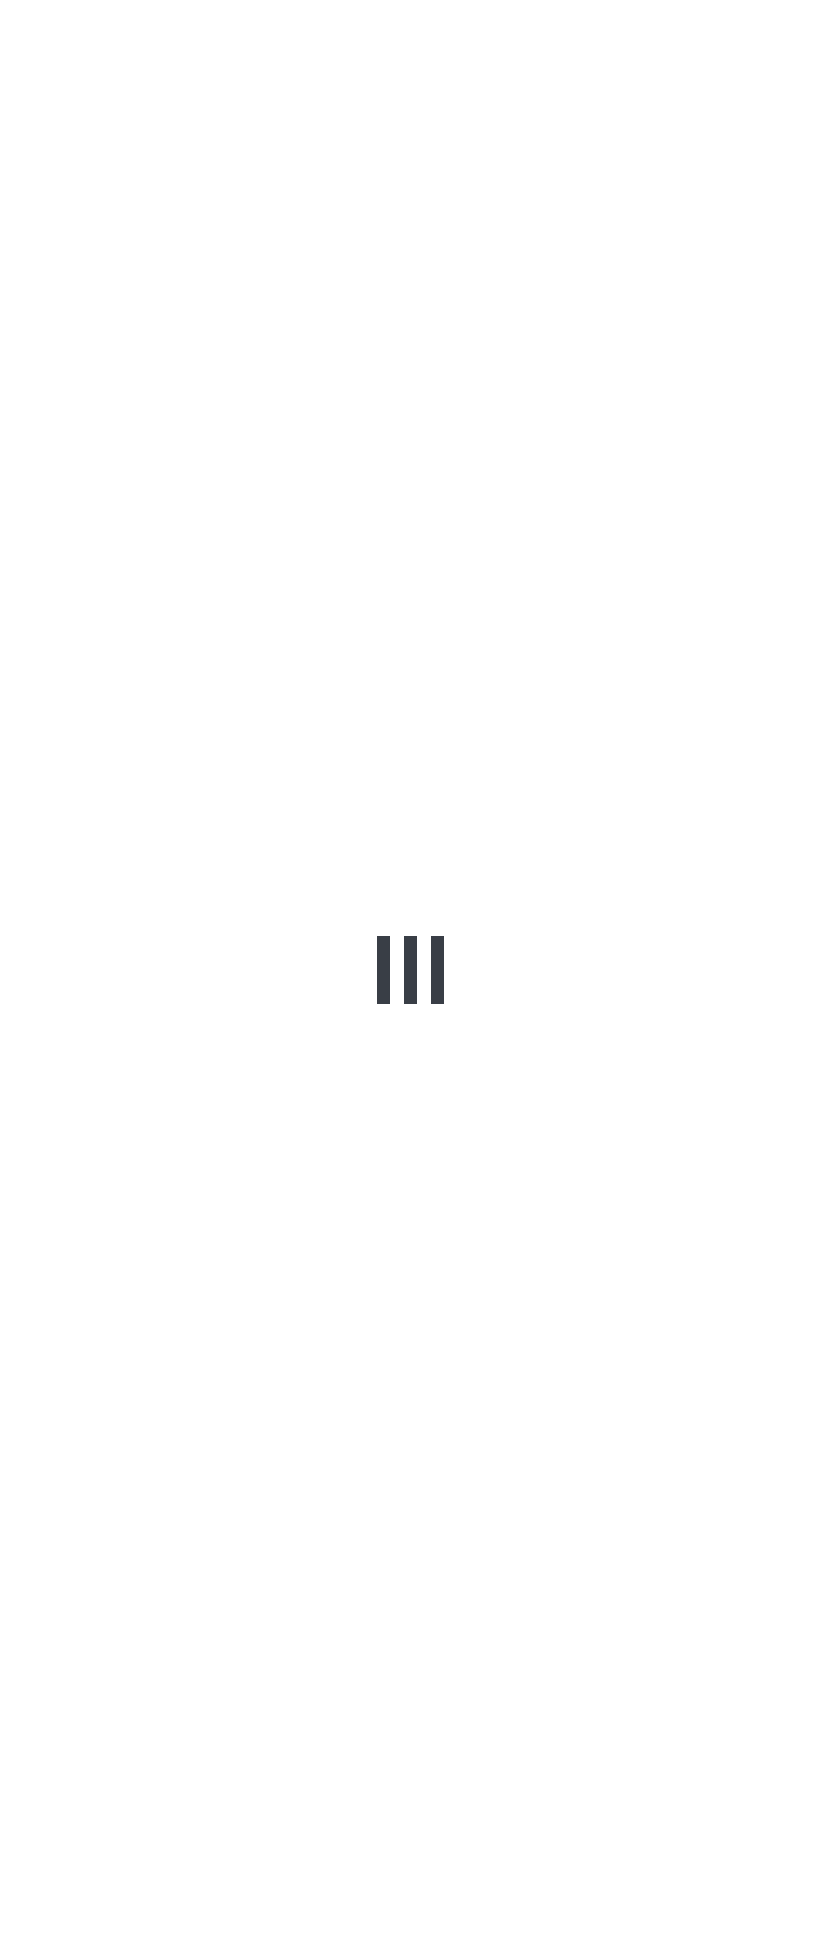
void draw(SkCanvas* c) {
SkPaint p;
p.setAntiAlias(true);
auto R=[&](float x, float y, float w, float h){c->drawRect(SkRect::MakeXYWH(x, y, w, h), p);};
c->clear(0xffffffff);
p.setColor(0xff393e46);
R(431,936,13,68);
R(404,936,13,68);
R(377,936,13,68);
}
